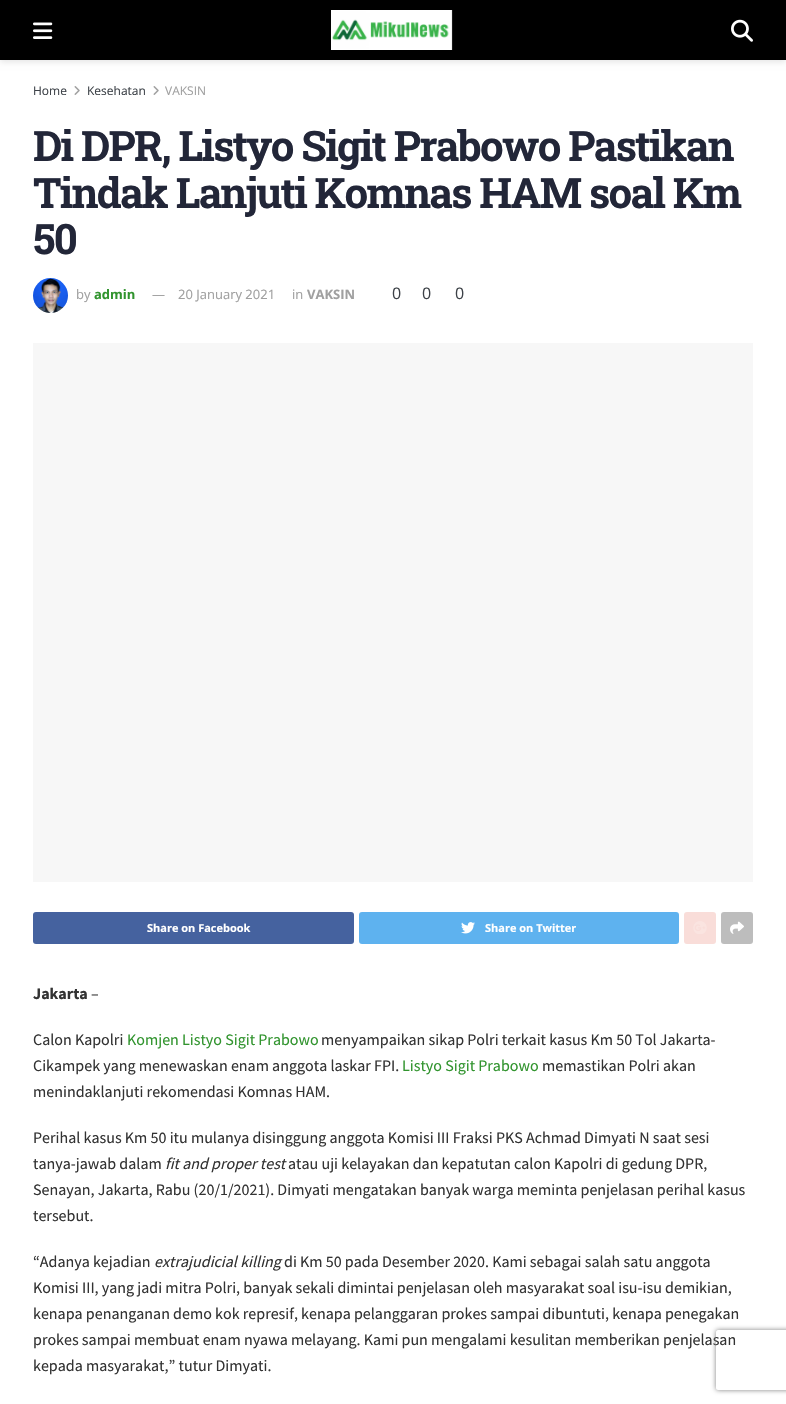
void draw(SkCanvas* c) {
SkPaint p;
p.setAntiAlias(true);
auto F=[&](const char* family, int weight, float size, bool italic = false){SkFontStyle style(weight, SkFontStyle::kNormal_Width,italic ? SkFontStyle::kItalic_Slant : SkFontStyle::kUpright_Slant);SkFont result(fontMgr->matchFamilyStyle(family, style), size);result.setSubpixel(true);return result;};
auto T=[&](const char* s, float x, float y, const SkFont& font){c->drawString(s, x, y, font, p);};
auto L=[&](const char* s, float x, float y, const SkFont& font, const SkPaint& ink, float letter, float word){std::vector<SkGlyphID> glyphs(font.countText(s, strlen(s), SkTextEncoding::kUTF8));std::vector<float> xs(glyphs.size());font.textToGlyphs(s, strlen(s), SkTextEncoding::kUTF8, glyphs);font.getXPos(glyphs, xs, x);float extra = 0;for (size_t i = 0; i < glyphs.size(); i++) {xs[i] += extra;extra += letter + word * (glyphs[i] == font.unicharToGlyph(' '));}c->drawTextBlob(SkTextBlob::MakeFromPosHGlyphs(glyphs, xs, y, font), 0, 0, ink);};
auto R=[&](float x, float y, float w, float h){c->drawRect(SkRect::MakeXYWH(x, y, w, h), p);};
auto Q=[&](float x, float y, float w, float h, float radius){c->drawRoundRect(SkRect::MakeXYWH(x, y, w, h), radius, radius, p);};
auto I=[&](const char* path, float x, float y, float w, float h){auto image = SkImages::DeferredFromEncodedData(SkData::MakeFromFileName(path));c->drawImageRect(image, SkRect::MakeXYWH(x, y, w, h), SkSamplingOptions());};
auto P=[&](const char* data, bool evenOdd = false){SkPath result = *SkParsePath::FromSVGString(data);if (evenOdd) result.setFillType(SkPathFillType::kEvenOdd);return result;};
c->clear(0xffffffff);
p.setColor(0x1a000000);
p.setMaskFilter(SkMaskFilter::MakeBlur(kNormal_SkBlurStyle, 3));
c->drawRect(SkRect::MakeXYWH(0,2,786,60),p);
p.setMaskFilter(nullptr);
p.setColor(0xff000000);
R(0,0,786,60);
I("1.png",33,22,20,17);
I("2.png",331,10,122,40);
I("3.png",731,19,22,23);
auto f1 = F("Open Sans",400,12);
p.setColor(0xff3d4248);
T("Home",33,95,f1);
I("4.png",74,86,6,9);
T("Kesehatan",87,95,f1);
I("4.png",153,86,6,9);
p.setColor(0xffa0a0a0);
T("VAKSIN",165,95,f1);
auto f2 = F("Roboto Slab",700,42);
p.setColor(0xff222638);
L("Di DPR, Listyo Sigit Prabowo Pastikan",33,161,f2,p,-1.7,0);
L("Tindak Lanjuti Komnas HAM soal Km",33,208,f2,p,-1.7,0);
L("50",33,254,f2,p,-1.7,0);
I("5.png",33,278,35,35);
auto f3 = F("Open Sans",400,13);
p.setColor(0xffa0a0a0);
T("by",76,299,f3);
auto f4 = F("Open Sans",700,13);
p.setColor(0xff31942e);
T("admin",94,299,f4);
p.setColor(0xffa0a0a0);
T("—",152,299,f3);
T("20 January 2021",178,299,f3);
T("in",292,299,f3);
T("VAKSIN",307,299,f4);
auto f5 = F("Open Sans",400,16);
p.setColor(0xff3d4248);
T("0",392,299,f5);
T("0",422,299,f5);
T("0",455,299,f5);
p.setColor(0xfff7f7f7);
R(33,343,720,539);
p.setColor(0xff45629f);
Q(33,912,321,32,3);
auto f6 = F("Open Sans",700,11);
p.setColor(0xffffffff);
T("Share on Facebook",147,932,f6);
p.setColor(0xff5eb2ef);
Q(359,912,320,32,3);
I("6.png",461,922,14,12);
p.setColor(0xffffffff);
T("Share on Twitter",485,932,f6);
p.setColor(0xfff9ddd9);
Q(684,912,32,32,3);
I("7.png",693,921,14,13);
p.setColor(0xffbdbdbd);
Q(721,912,32,32,3);
I("8.png",730,921,14,13);
auto f7 = F("Source Sans Pro",700,16);
p.setColor(0xff333333);
T("Jakarta",33,999,f7);
auto f8 = F("Source Sans Pro",400,16);
T("–",91,999,f8);
T("Calon Kapolri",33,1045,f8);
p.setColor(0xff31942e);
T("Komjen Listyo Sigit Prabowo",127,1045,f8);
p.setColor(0xff333333);
T("menyampaikan sikap Polri terkait kasus Km 50 Tol Jakarta-",321,1045,f8);
T("Cikampek yang menewaskan enam anggota laskar FPI.",33,1071,f8);
p.setColor(0xff31942e);
T("Listyo Sigit Prabowo",402,1071,f8);
p.setColor(0xff333333);
T("memastikan Polri akan",542,1071,f8);
T("menindaklanjuti rekomendasi Komnas HAM.",33,1097,f8);
T("Perihal kasus Km 50 itu mulanya disinggung anggota Komisi III Fraksi PKS Achmad Dimyati N saat sesi",33,1143,f8);
T("tanya-jawab dalam",33,1169,f8);
auto f9 = F("Source Sans Pro",400,16,true);
T("fit and proper test",165,1169,f9);
T("atau uji kelayakan dan kepatutan calon Kapolri di gedung DPR,",288,1169,f8);
T("Senayan, Jakarta, Rabu (20/1/2021). Dimyati mengatakan banyak warga meminta penjelasan perihal kasus",33,1195,f8);
T("tersebut.",33,1221,f8);
T("“Adanya kejadian",33,1267,f8);
T("extrajudicial killing",154,1267,f9);
T("di Km 50 pada Desember 2020. Kami sebagai salah satu anggota",284,1267,f8);
T("Komisi III, yang jadi mitra Polri, banyak sekali dimintai penjelasan oleh masyarakat soal isu-isu demikian,",33,1293,f8);
T("kenapa penanganan demo kok represif, kenapa pelanggaran prokes sampai dibuntuti, kenapa penegakan",33,1319,f8);
T("prokes sampai membuat enam nyawa melayang. Kami pun mengalami kesulitan memberikan penjelasan",33,1345,f8);
T("kepada masyarakat,” tutur Dimyati.",33,1371,f8);
c->save();
c->clipPath(P("M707 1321h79v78h-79zm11 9h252c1 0 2 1 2 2v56c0 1-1 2-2 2h-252c-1 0-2-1-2-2v-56c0-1 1-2 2-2z",true),true);
p.setColor(0xff808080);
p.setMaskFilter(SkMaskFilter::MakeBlur(kNormal_SkBlurStyle, 2.5));
c->drawRoundRect(SkRect::MakeXYWH(716,1330,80,60),2,2,p);
p.setMaskFilter(nullptr);
c->restore();
}
